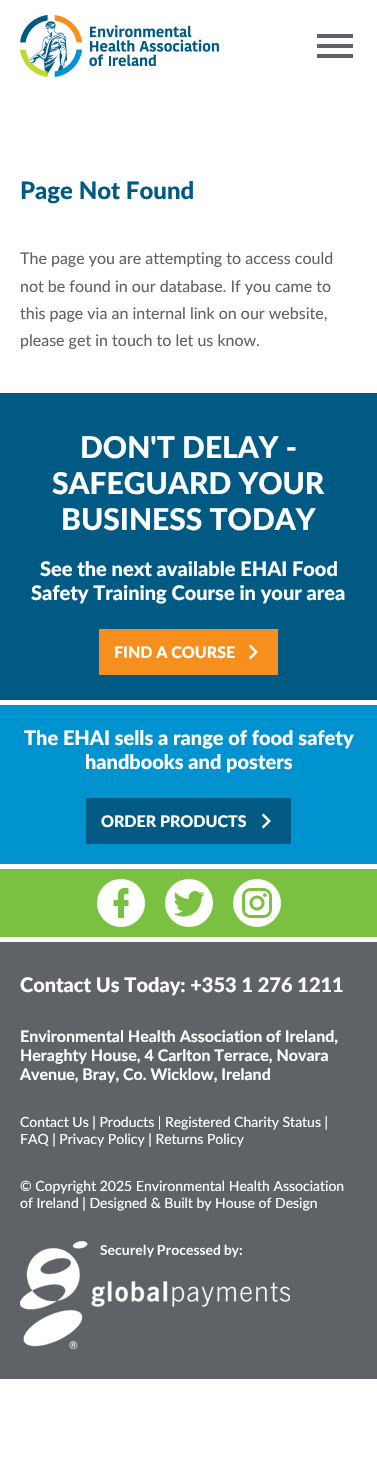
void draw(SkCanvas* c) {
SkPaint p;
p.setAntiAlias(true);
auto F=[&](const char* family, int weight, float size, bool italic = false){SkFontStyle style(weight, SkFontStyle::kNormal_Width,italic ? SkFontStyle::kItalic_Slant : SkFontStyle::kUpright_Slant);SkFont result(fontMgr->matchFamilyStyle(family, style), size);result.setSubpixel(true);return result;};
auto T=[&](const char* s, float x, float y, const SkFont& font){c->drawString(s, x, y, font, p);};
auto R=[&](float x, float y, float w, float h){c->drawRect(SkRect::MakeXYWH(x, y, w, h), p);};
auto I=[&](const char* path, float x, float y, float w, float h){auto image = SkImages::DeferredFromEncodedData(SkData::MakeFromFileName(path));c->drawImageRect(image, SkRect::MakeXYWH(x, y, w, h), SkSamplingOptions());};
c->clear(0xffffffff);
I("1.png",20,15,199,62);
I("2.png",317,34,36,24);
auto f1 = F("Lato",900,24);
p.setColor(0xff005a84);
T("Page Not Found",20,199,f1);
auto f2 = F("Lato",400,16);
p.setColor(0xff5f6266);
T("The page you are attempting to access could",20,264,f2);
T("not be found in our database. If you came to",20,292,f2);
T("this page via an internal link on our website,",20,319,f2);
T("please get in touch to let us know.",20,346,f2);
p.setColor(0xff005a84);
R(0,393,377,307);
auto f3 = F("Lato",900,30);
p.setColor(0xffffffff);
T("DON'T DELAY -",80,458,f3);
T("SAFEGUARD YOUR",52,494,f3);
T("BUSINESS TODAY",61,530,f3);
auto f4 = F("Lato",900,20);
T("See the next available EHAI Food",40,576,f4);
T("Safety Training Course in your area",31,600,f4);
p.setColor(0xfff78f1e);
R(99,629,179,46);
auto f5 = F("Lato",900,16);
p.setColor(0xffffffff);
T("FIND A COURSE",114,658,f5);
I("3.png",248,644,10,16);
p.setColor(0xff0093d0);
R(0,705,377,159);
p.setColor(0xffffffff);
T("The EHAI sells a range of food safety",24,745,f4);
T("handbooks and posters",85,769,f4);
p.setColor(0xff005a84);
R(86,798,205,46);
p.setColor(0xffffffff);
T("ORDER PRODUCTS",101,827,f5);
I("4.png",261,813,10,16);
p.setColor(0xff7ac142);
R(0,869,377,68);
p.setColor(0xffffffff);
c->drawCircle(121,903,24,p);
I("5.png",113,888,16,30);
c->drawCircle(189,903,24,p);
I("6.png",173,891,32,26);
c->drawCircle(257,903,24,p);
I("7.png",242,888,30,30);
p.setColor(0xff5f6266);
R(0,942,377,437);
p.setColor(0xffffffff);
T("Contact Us Today: +353 1 276 1211",20,992,f4);
auto f6 = F("Lato",700,16);
T("Environmental Health Association of Ireland,",20,1042,f6);
T("Heraghty House, 4 Carlton Terrace, Novara",20,1061,f6);
T("Avenue, Bray, Co. Wicklow, Ireland",20,1080,f6);
auto f7 = F("Lato",400,14);
T("Contact Us | Products | Registered Charity Status |",20,1127,f7);
T("FAQ | Privacy Policy | Returns Policy",20,1144,f7);
T("© Copyright 2025 Environmental Health Association",20,1191,f7);
T("of Ireland | Designed & Built by House of Design",20,1208,f7);
I("8.png",20,1241,270,108);
}
